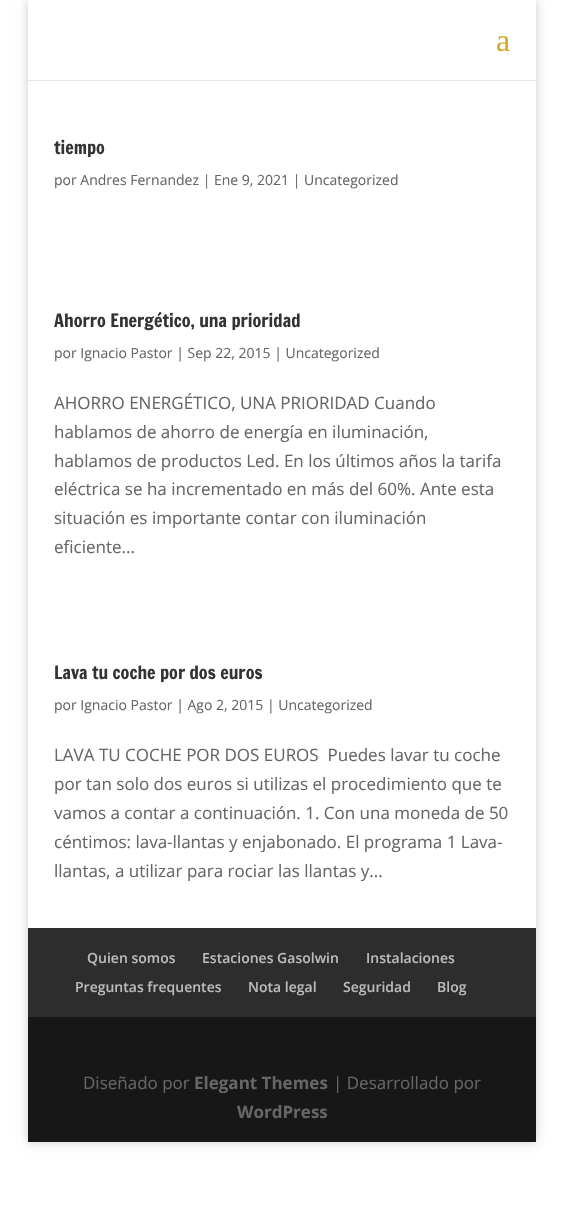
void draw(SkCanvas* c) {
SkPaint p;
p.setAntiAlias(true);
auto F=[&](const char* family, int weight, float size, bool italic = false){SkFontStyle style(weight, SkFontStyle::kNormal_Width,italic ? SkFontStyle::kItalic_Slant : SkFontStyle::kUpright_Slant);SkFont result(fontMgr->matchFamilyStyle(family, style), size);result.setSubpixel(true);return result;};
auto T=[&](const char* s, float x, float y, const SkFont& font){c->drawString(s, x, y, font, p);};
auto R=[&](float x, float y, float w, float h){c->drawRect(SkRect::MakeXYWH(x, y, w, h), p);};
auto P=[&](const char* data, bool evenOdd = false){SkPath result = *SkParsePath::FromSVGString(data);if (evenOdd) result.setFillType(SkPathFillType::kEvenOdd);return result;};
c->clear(0xffffffff);
c->save();
c->clipPath(P("M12 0h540v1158h-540zm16 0h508v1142h-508z",true),true);
p.setColor(0x33000000);
p.setMaskFilter(SkMaskFilter::MakeBlur(kNormal_SkBlurStyle, 5));
c->drawRect(SkRect::MakeXYWH(28,0,508,1142),p);
p.setMaskFilter(nullptr);
c->restore();
p.setColor(0xffe6e6e6);
R(28,80,508,1);
auto f1 = F("Liberation Serif",400,32);
p.setColor(0xffd6aa28);
T("a",496,51,f1);
auto f2 = F("Francois One",400,18);
p.setColor(0xff333333);
T("tiempo",54,154,f2);
auto f3 = F("Open Sans",400,14);
p.setColor(0xff666666);
T("por Andres Fernandez | Ene 9, 2021 | Uncategorized",54,185,f3);
p.setColor(0xff333333);
T("Ahorro Energético, una prioridad",54,327,f2);
p.setColor(0xff666666);
T("por Ignacio Pastor | Sep 22, 2015 | Uncategorized",54,358,f3);
auto f4 = F("Open Sans",400,17);
T("AHORRO ENERGÉTICO, UNA PRIORIDAD Cuando",54,409,f4);
T("hablamos de ahorro de energía en iluminación,",54,438,f4);
T("hablamos de productos Led. En los últimos años la tarifa",54,467,f4);
T("eléctrica se ha incrementado en más del 60%. Ante esta",54,495,f4);
T("situación es importante contar con iluminación",54,524,f4);
T("eficiente...",54,553,f4);
p.setColor(0xff333333);
T("Lava tu coche por dos euros",54,679,f2);
p.setColor(0xff666666);
T("por Ignacio Pastor | Ago 2, 2015 | Uncategorized",54,710,f3);
T("LAVA TU COCHE POR DOS EUROS  Puedes lavar tu coche",54,761,f4);
T("por tan solo dos euros si utilizas el procedimiento que te",54,790,f4);
T("vamos a contar a continuación. 1. Con una moneda de 50",54,819,f4);
T("céntimos: lava-llantas y enjabonado. El programa 1 Lava-",54,848,f4);
T("llantas, a utilizar para rociar las llantas y...",54,877,f4);
p.setColor(0xff2d2d2d);
R(28,928,508,89);
auto f5 = F("Open Sans",600,14);
p.setColor(0xffbbbbbb);
T("Quien somos",87,963,f5);
T("Estaciones Gasolwin",202,963,f5);
T("Instalaciones",366,963,f5);
T("Preguntas frequentes",75,992,f5);
T("Nota legal",248,992,f5);
T("Seguridad",343,992,f5);
T("Blog",437,992,f5);
p.setColor(0xff171717);
R(28,1017,508,125);
p.setColor(0xff666666);
T("Diseñado por",83,1089,f4);
auto f6 = F("Open Sans",700,17);
T("Elegant Themes",194,1089,f6);
T("| Desarrollado por",333,1089,f4);
T("WordPress",237,1118,f6);
}
